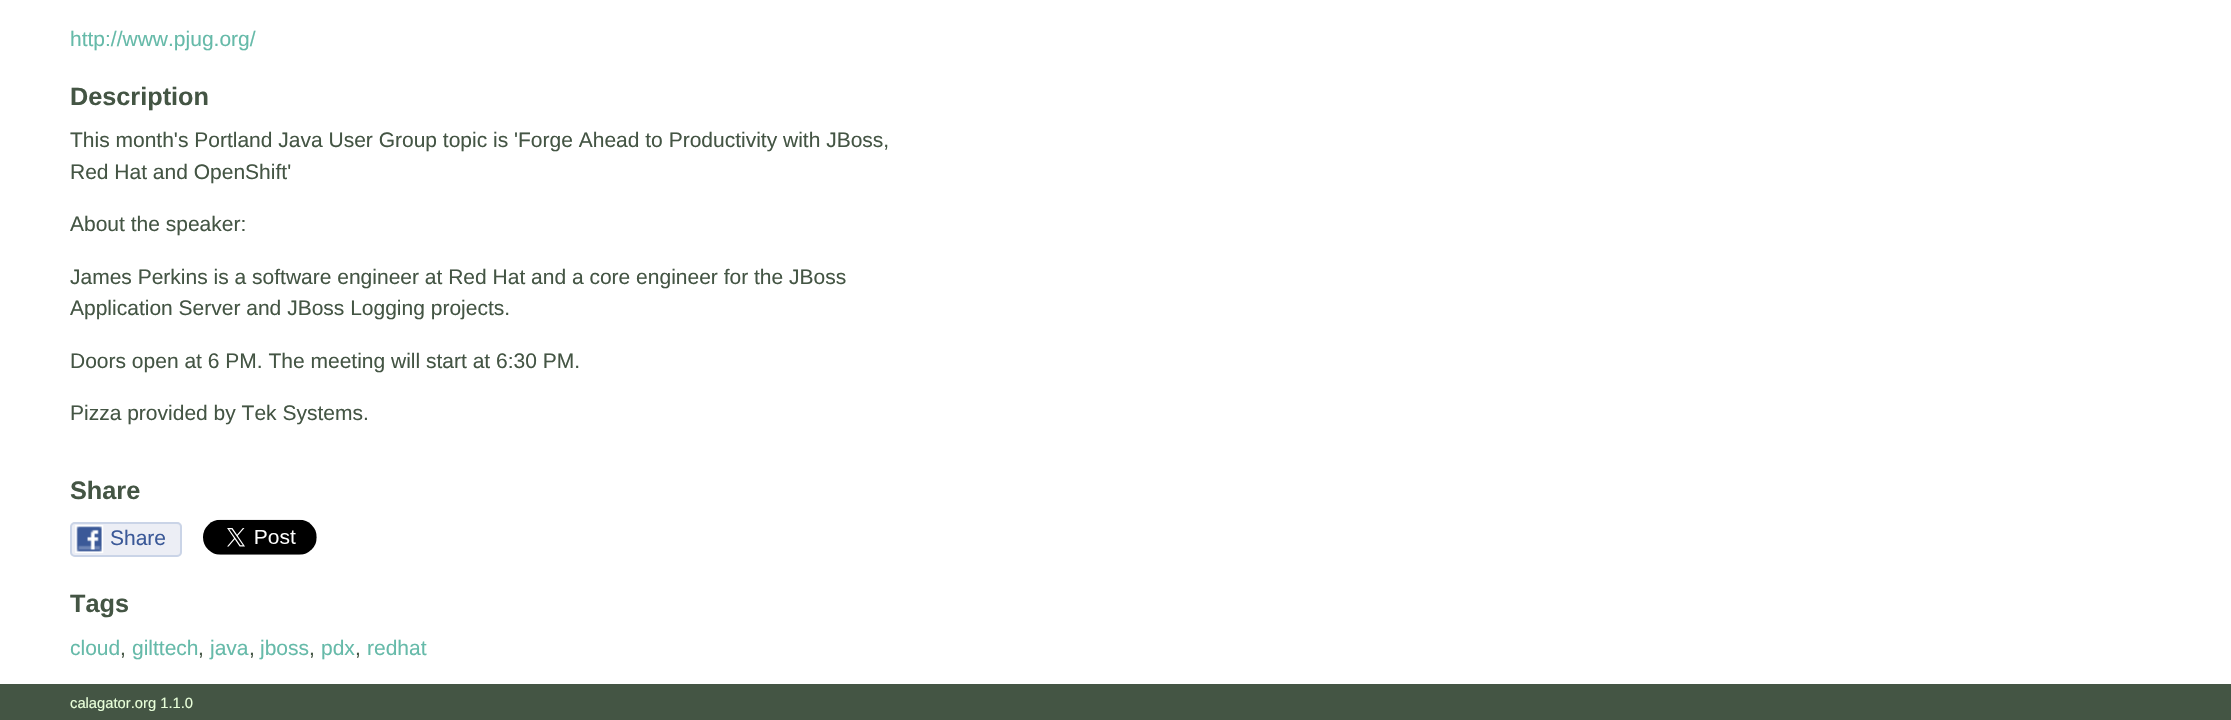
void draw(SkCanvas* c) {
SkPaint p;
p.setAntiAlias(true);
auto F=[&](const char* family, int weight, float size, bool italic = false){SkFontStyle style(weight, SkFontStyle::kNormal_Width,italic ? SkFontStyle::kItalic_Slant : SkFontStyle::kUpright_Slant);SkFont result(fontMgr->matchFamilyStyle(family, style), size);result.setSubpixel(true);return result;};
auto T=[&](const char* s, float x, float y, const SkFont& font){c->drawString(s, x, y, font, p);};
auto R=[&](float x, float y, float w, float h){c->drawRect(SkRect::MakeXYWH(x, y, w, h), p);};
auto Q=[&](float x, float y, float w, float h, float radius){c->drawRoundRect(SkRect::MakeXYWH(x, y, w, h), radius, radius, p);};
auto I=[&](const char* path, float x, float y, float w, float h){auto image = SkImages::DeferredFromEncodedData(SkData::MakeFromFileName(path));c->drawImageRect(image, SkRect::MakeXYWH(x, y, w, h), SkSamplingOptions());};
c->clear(0xffffffff);
auto f1 = F("Liberation Sans",400,21);
p.setColor(0xff66baa9);
T("http://www.pjug.org/",70,46,f1);
auto f2 = F("Liberation Sans",700,25.25);
p.setColor(0xff445544);
T("Description",70,105,f2);
T("This month's Portland Java User Group topic is 'Forge Ahead to Productivity with JBoss,",70,147,f1);
T("Red Hat and OpenShift'",70,179,f1);
T("About the speaker:",70,231,f1);
T("James Perkins is a software engineer at Red Hat and a core engineer for the JBoss",70,284,f1);
T("Application Server and JBoss Logging projects.",70,315,f1);
T("Doors open at 6 PM. The meeting will start at 6:30 PM.",70,368,f1);
T("Pizza provided by Tek Systems.",70,420,f1);
T("Share",70,499,f2);
p.setColor(0xffeceef5);
Q(70,522,112,35,5);
I("1.png",75,525,29,28);
p.setStroke(true);
p.setStrokeWidth(2);
p.setColor(0xffcad4e7);
c->drawRoundRect(SkRect::MakeXYWH(71,523,110,33),4,4,p);
p.setStroke(false);
p.setColor(0xff3b5998);
T("Share",110,545,f1);
I("2.png",203,519,114,36);
p.setColor(0xff445544);
T("Tags",70,612,f2);
p.setColor(0xff66baa9);
T("cloud",70,655,f1);
p.setColor(0xff445544);
T(",",120,655,f1);
p.setColor(0xff66baa9);
T("gilttech",132,655,f1);
p.setColor(0xff445544);
T(",",198,655,f1);
p.setColor(0xff66baa9);
T("java",210,655,f1);
p.setColor(0xff445544);
T(",",249,655,f1);
p.setColor(0xff66baa9);
T("jboss",260,655,f1);
p.setColor(0xff445544);
T(",",309,655,f1);
p.setColor(0xff66baa9);
T("pdx",321,655,f1);
p.setColor(0xff445544);
T(",",355,655,f1);
p.setColor(0xff66baa9);
T("redhat",367,655,f1);
p.setColor(0xff445544);
R(0,684,2231,36);
auto f3 = F("Liberation Sans",400,14.75);
p.setColor(0xffe8ffd9);
T("calagator.org 1.1.0",70,708,f3);
}
